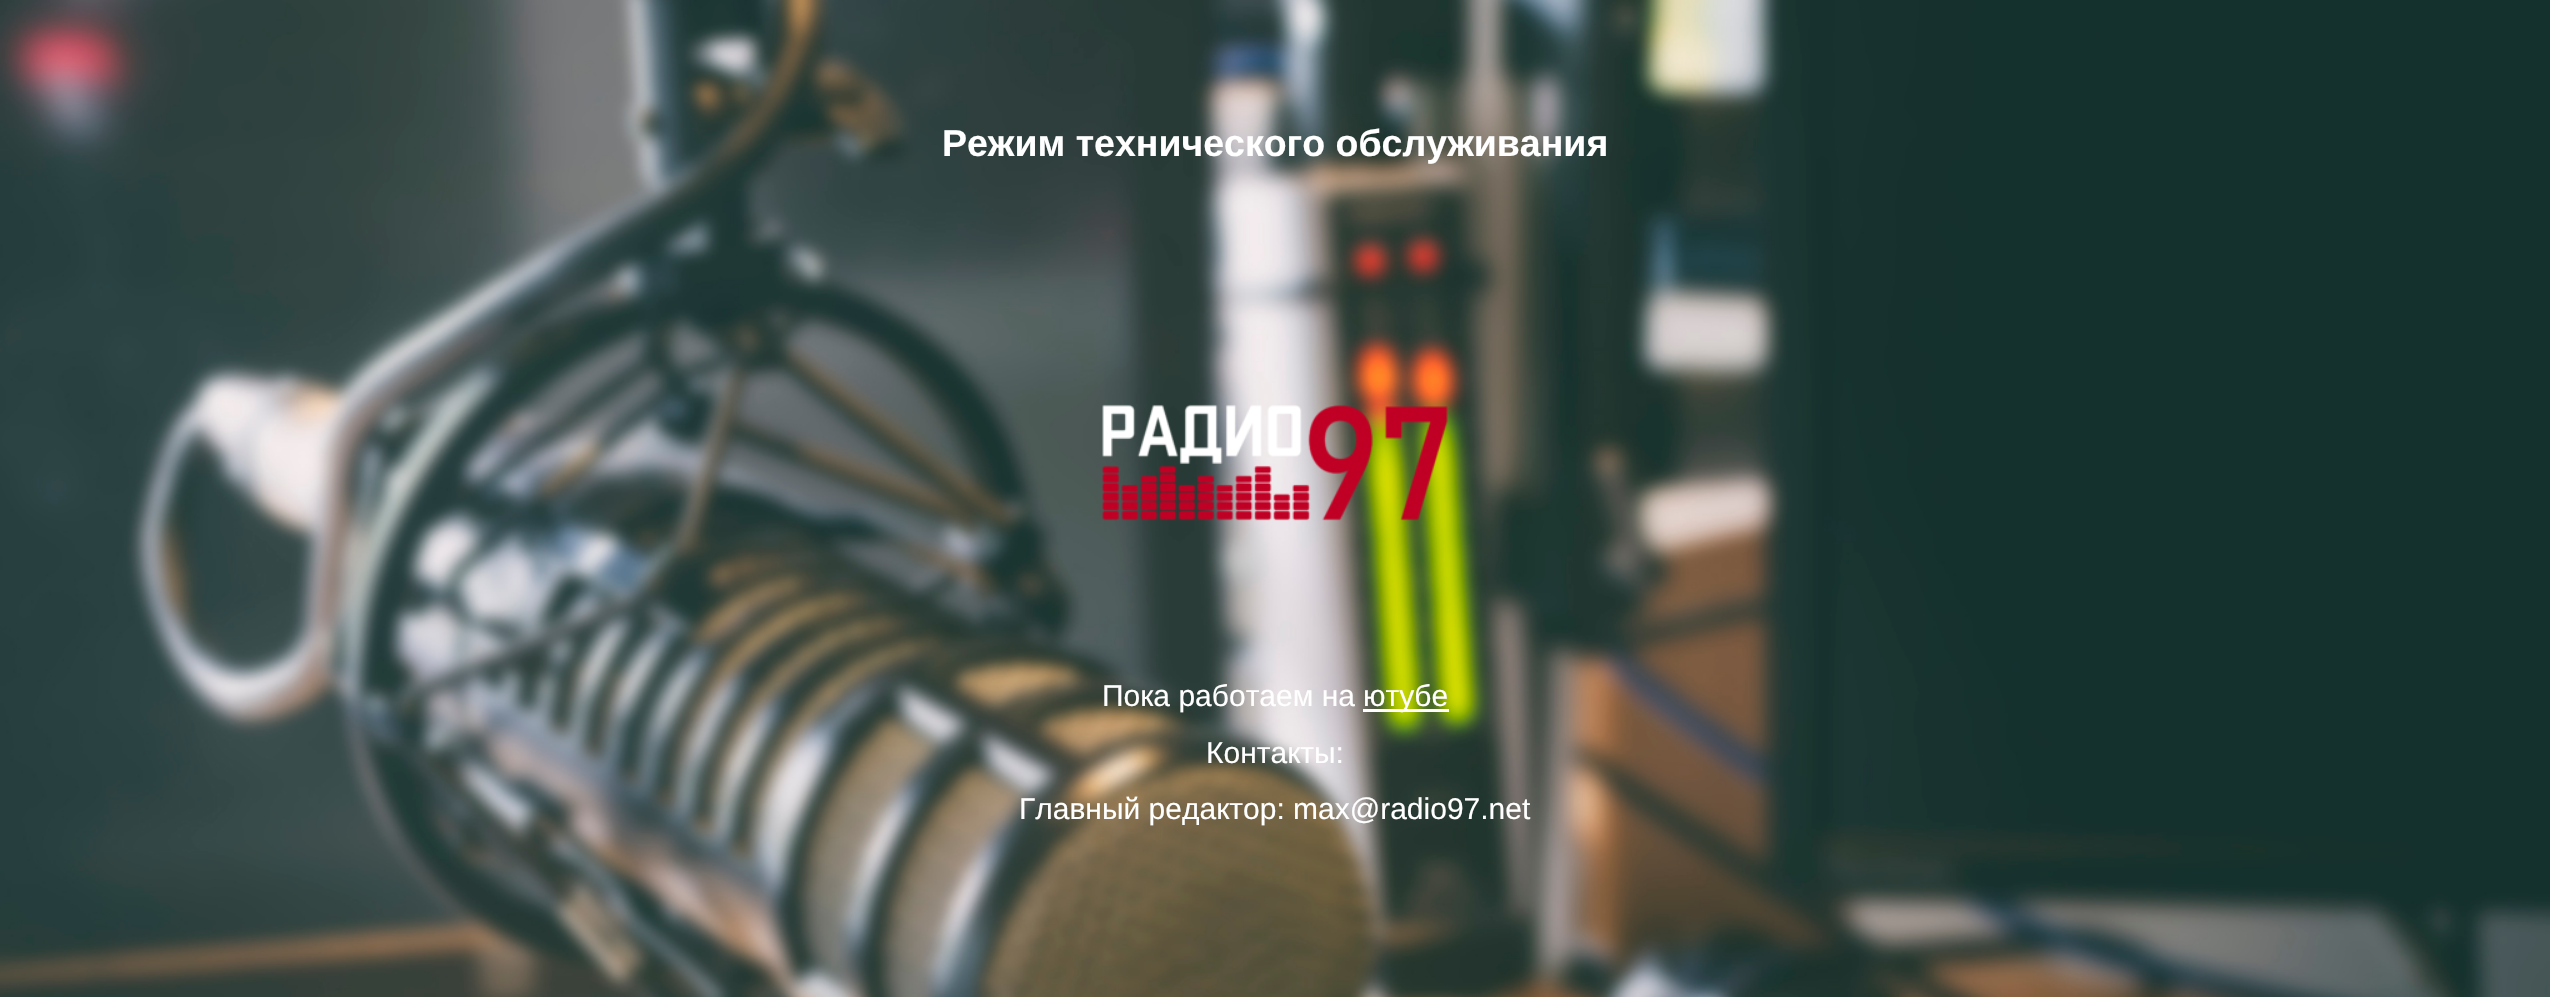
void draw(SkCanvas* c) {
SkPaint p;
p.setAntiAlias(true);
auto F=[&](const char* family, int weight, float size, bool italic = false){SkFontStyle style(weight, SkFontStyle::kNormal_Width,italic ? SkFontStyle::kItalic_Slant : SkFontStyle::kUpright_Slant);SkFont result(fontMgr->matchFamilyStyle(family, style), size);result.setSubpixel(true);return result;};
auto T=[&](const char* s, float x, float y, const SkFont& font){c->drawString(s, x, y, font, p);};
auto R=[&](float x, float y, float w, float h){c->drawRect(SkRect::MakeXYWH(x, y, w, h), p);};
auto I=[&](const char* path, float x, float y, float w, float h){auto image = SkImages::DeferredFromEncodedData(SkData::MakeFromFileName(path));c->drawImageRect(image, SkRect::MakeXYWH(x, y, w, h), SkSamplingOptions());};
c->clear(0xffffffff);
I("1.png",0,0,2550,997);
auto f1 = F("Liberation Sans",700,37.5);
p.setColor(0xffffffff);
T("Режим технического обслуживания",942,156,f1);
I("2.png",1102,404,346,117);
auto f2 = F("Liberation Sans",400,30);
T("Пока работаем на",1102,706,f2);
R(1363,709,86,3);
T("ютубе",1363,706,f2);
T("Контакты:",1206,763,f2);
T("Главный редактор: max@radio97.net",1019,819,f2);
}
